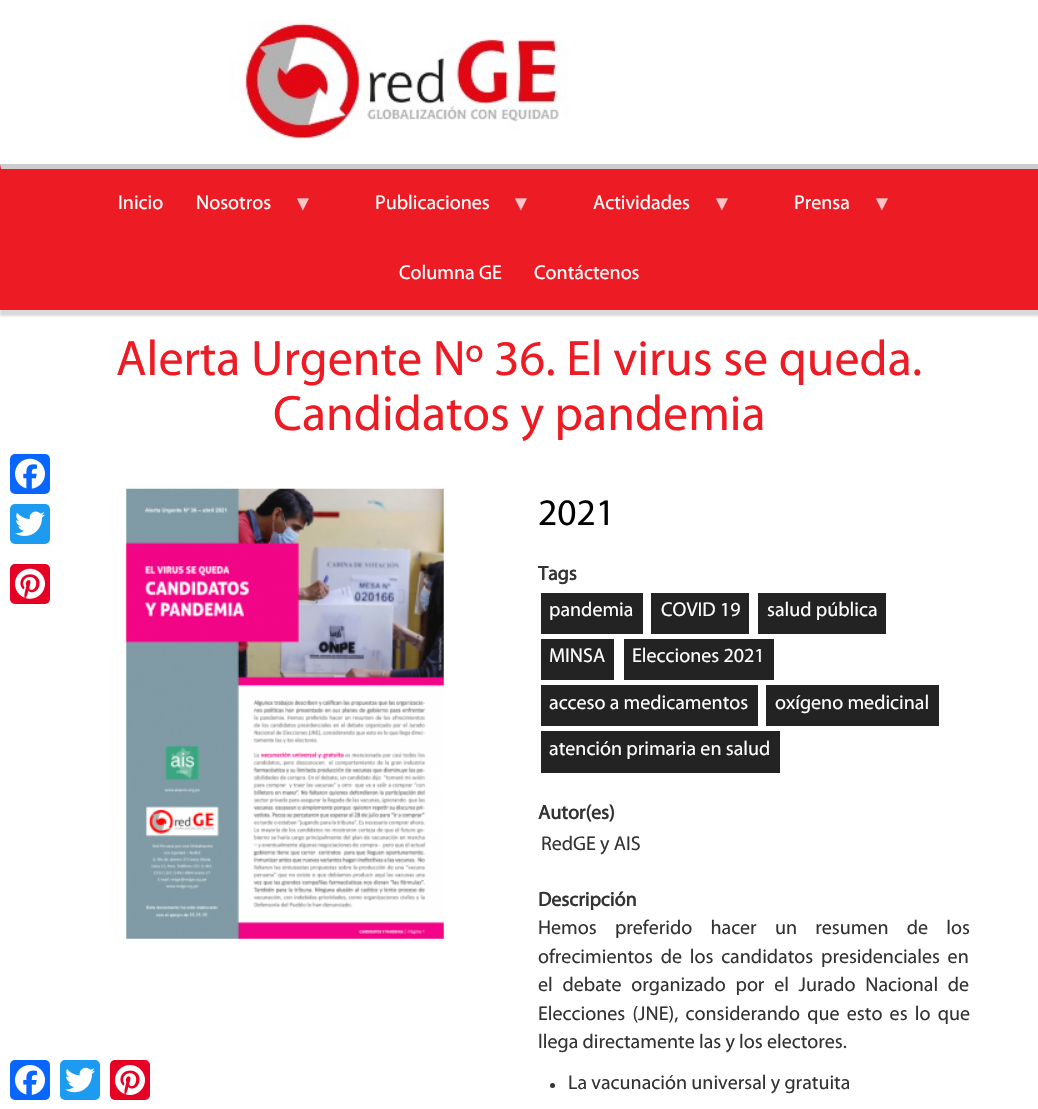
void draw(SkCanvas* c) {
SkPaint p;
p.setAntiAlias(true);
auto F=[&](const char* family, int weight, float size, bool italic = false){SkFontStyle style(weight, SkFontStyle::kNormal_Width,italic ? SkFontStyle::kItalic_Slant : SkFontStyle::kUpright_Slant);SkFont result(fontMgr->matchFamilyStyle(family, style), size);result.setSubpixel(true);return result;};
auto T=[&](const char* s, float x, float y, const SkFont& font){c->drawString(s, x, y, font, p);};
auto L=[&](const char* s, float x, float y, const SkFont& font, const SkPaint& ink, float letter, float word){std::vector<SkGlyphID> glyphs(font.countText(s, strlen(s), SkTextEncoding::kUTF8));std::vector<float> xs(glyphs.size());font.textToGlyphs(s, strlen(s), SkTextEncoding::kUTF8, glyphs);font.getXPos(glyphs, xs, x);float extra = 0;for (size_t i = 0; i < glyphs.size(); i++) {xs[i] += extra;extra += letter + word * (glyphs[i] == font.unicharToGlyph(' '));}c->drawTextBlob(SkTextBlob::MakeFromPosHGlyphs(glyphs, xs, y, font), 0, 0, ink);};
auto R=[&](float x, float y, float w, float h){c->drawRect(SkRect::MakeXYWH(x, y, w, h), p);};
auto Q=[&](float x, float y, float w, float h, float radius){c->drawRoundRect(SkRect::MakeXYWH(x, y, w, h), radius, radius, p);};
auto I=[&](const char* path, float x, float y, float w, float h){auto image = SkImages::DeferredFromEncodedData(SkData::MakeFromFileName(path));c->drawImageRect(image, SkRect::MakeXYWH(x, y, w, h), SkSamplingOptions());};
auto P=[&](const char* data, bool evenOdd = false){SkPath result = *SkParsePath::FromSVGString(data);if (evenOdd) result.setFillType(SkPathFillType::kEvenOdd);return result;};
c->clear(0xffffffff);
I("1.png",229,20,340,120);
p.setColor(0x26000000);
p.setMaskFilter(SkMaskFilter::MakeBlur(kNormal_SkBlurStyle, 1));
c->drawRect(SkRect::MakeXYWH(0,170,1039,146),p);
p.setMaskFilter(nullptr);
p.setColor(0xffed1c24);
R(0,164,1038,146);
p.setColor(0xffcccccc);
c->drawPath(P("M0 164h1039l-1 5h-1037z"),p);
auto f1 = F("Myriad",400,20);
p.setColor(0xffffffff);
T("Inicio",118,209,f1);
T("Nosotros",196,209,f1);
auto f2 = F("Liberation Serif",400,20);
p.setColor(0xfffbc6c8);
T("▼",293,210,f2);
p.setColor(0xffffffff);
T("Publicaciones",375,209,f1);
p.setColor(0xfffbc6c8);
T("▼",511,210,f2);
p.setColor(0xffffffff);
T("Actividades",593,209,f1);
p.setColor(0xfffbc6c8);
T("▼",712,210,f2);
p.setColor(0xffffffff);
T("Prensa",794,209,f1);
p.setColor(0xfffbc6c8);
T("▼",872,210,f2);
p.setColor(0xffffffff);
T("Columna GE",399,279,f1);
T("Contáctenos",534,279,f1);
p.setColor(0xff0866ff);
Q(10,454,40,40,5);
I("2.png",15,458,30,31);
p.setColor(0xff1d9bf0);
Q(10,504,40,40,5);
I("3.png",15,511,30,25);
p.setColor(0xffe60023);
Q(10,564,40,40,5);
I("4.png",15,568,30,31);
auto f3 = F("Myriad",400,50);
p.setColor(0xffed1c24);
T("Alerta Urgente Nº 36. El virus se queda.",116,375,f3);
T("Candidatos y pandemia",273,430,f3);
I("5.png",126,488,318,451);
auto f4 = F("Myriad",400,37.5);
p.setColor(0xff000000);
T("2021",538,525,f4);
auto f5 = F("Myriad",700,20);
p.setColor(0xff333333);
T("Tags",538,580,f5);
p.setColor(0xff232323);
R(541,593,102,41);
p.setColor(0xffffffff);
T("pandemia",549,616,f1);
p.setColor(0xff232323);
R(651,593,98,41);
p.setColor(0xffffffff);
T("COVID 19",661,616,f1);
p.setColor(0xff232323);
R(758,593,128,41);
p.setColor(0xffffffff);
T("salud pública",767,616,f1);
p.setColor(0xff232323);
R(541,639,73,41);
p.setColor(0xffffffff);
T("MINSA",549,662,f1);
p.setColor(0xff232323);
R(624,639,150,41);
p.setColor(0xffffffff);
T("Elecciones 2021",632,662,f1);
p.setColor(0xff232323);
R(541,685,217,41);
p.setColor(0xffffffff);
T("acceso a medicamentos",549,709,f1);
p.setColor(0xff232323);
R(766,685,173,41);
p.setColor(0xffffffff);
T("oxígeno medicinal",775,709,f1);
p.setColor(0xff232323);
R(541,731,239,42);
p.setColor(0xffffffff);
T("atención primaria en salud",549,755,f1);
p.setColor(0xff333333);
T("Autor(es)",538,819,f5);
T("RedGE y AIS",541,850,f1);
T("Descripción",538,906,f5);
L("Hemos preferido hacer un resumen de los",538,934,f1,p,0,14);
L("ofrecimientos de los candidatos presidenciales en",538,963,f1,p,0,3.5);
L("el debate organizado por el Jurado Nacional de",538,991,f1,p,0,5.5);
L("Elecciones (JNE), considerando que esto es lo que",538,1020,f1,p,0,3);
T("llega directamente las y los electores.",538,1048,f1);
c->drawCircle(552.5,1085.5,2.5,p);
T("La vacunación universal y gratuita",568,1089,f1);
p.setColor(0xff0866ff);
Q(10,1060,40,40,5);
I("6.png",15,1065,30,30);
p.setColor(0xff1d9bf0);
Q(60,1060,40,40,5);
I("7.png",65,1067,30,26);
p.setColor(0xffe60023);
Q(110,1060,40,40,5);
I("8.png",115,1065,30,30);
}
